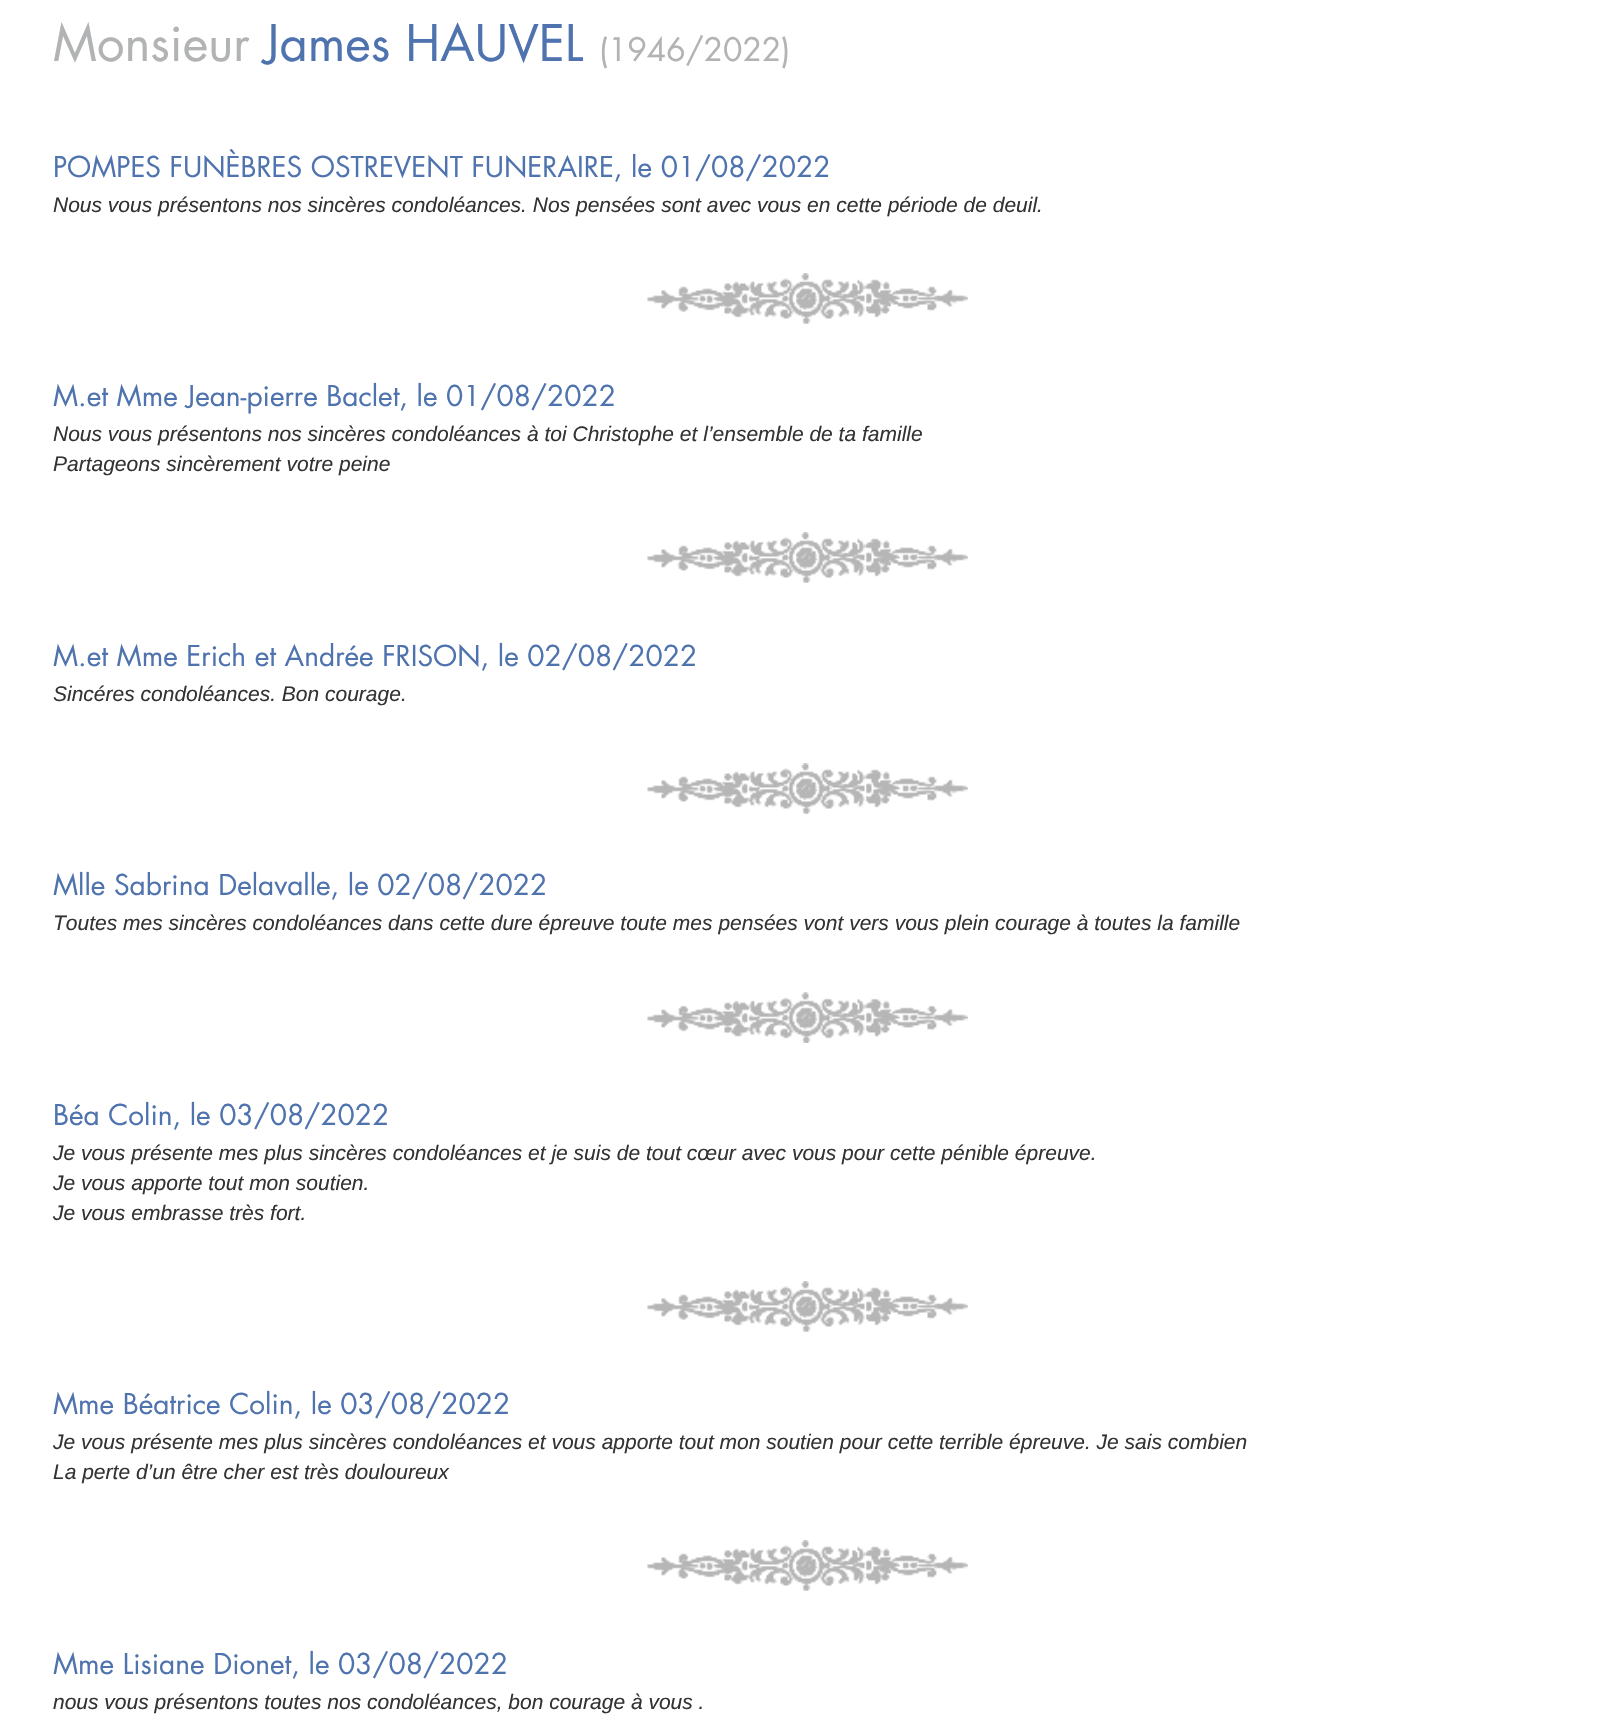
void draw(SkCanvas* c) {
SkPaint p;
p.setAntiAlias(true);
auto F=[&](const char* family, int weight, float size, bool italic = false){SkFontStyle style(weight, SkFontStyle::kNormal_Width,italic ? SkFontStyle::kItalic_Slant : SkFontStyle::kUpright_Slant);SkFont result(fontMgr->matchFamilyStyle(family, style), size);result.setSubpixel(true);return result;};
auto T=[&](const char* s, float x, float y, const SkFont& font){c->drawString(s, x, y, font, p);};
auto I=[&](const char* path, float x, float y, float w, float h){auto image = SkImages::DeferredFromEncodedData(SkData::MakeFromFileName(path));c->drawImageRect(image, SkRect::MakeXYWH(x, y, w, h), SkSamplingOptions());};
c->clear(0xffffffff);
auto f1 = F("Futura",400,49);
p.setColor(0xffb1b3b4);
T("Monsieur",53,61,f1);
p.setColor(0xff4f73ae);
T("James HAUVEL",264,61,f1);
auto f2 = F("Futura",400,31.5);
p.setColor(0xffb1b3b4);
T("(1946/2022)",599,61,f2);
auto f3 = F("Futura",400,28);
p.setColor(0xff4f73ae);
T("POMPES FUNÈBRES OSTREVENT FUNERAIRE, le 01/08/2022",53,177,f3);
auto f4 = F("Liberation Sans",400,21,true);
p.setColor(0xff333333);
T("Nous vous présentons nos sincères condoléances. Nos pensées sont avec vous en cette période de deuil.",53,212,f4);
I("1.png",647,273,321,51);
p.setColor(0xff4f73ae);
T("M.et Mme Jean-pierre Baclet, le 01/08/2022",53,406,f3);
p.setColor(0xff333333);
T("Nous vous présentons nos sincères condoléances à toi Christophe et l’ensemble de ta famille",53,441,f4);
T("Partageons sincèrement votre peine",53,471,f4);
I("1.png",647,532,321,51);
p.setColor(0xff4f73ae);
T("M.et Mme Erich et Andrée FRISON, le 02/08/2022",53,666,f3);
p.setColor(0xff333333);
T("Sincéres condoléances. Bon courage.",53,701,f4);
I("1.png",647,763,321,51);
p.setColor(0xff4f73ae);
T("Mlle Sabrina Delavalle, le 02/08/2022",53,895,f3);
p.setColor(0xff333333);
T("Toutes mes sincères condoléances dans cette dure épreuve toute mes pensées vont vers vous plein courage à toutes la famille",53,930,f4);
I("2.png",647,992,321,51);
p.setColor(0xff4f73ae);
T("Béa Colin, le 03/08/2022",53,1125,f3);
p.setColor(0xff333333);
T("Je vous présente mes plus sincères condoléances et je suis de tout cœur avec vous pour cette pénible épreuve.",53,1160,f4);
T("Je vous apporte tout mon soutien.",53,1190,f4);
T("Je vous embrasse très fort.",53,1220,f4);
I("1.png",647,1281,321,51);
p.setColor(0xff4f73ae);
T("Mme Béatrice Colin, le 03/08/2022",53,1414,f3);
p.setColor(0xff333333);
T("Je vous présente mes plus sincères condoléances et vous apporte tout mon soutien pour cette terrible épreuve. Je sais combien",53,1449,f4);
T("La perte d’un être cher est très douloureux",53,1479,f4);
I("1.png",647,1540,321,51);
p.setColor(0xff4f73ae);
T("Mme Lisiane Dionet, le 03/08/2022",53,1674,f3);
p.setColor(0xff333333);
T("nous vous présentons toutes nos condoléances, bon courage à vous .",53,1709,f4);
}
